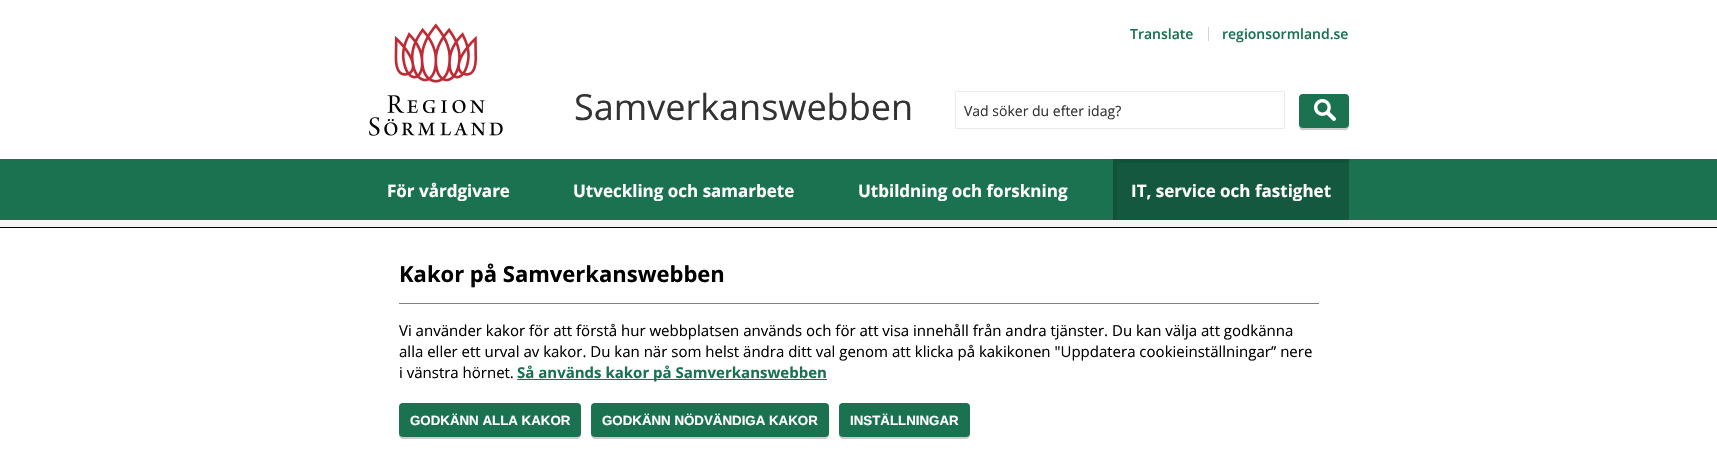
void draw(SkCanvas* c) {
SkPaint p;
p.setAntiAlias(true);
auto F=[&](const char* family, int weight, float size, bool italic = false){SkFontStyle style(weight, SkFontStyle::kNormal_Width,italic ? SkFontStyle::kItalic_Slant : SkFontStyle::kUpright_Slant);SkFont result(fontMgr->matchFamilyStyle(family, style), size);result.setSubpixel(true);return result;};
auto T=[&](const char* s, float x, float y, const SkFont& font){c->drawString(s, x, y, font, p);};
auto R=[&](float x, float y, float w, float h){c->drawRect(SkRect::MakeXYWH(x, y, w, h), p);};
auto Q=[&](float x, float y, float w, float h, float radius){c->drawRoundRect(SkRect::MakeXYWH(x, y, w, h), radius, radius, p);};
auto I=[&](const char* path, float x, float y, float w, float h){auto image = SkImages::DeferredFromEncodedData(SkData::MakeFromFileName(path));c->drawImageRect(image, SkRect::MakeXYWH(x, y, w, h), SkSamplingOptions());};
auto P=[&](const char* data, bool evenOdd = false){SkPath result = *SkParsePath::FromSVGString(data);if (evenOdd) result.setFillType(SkPathFillType::kEvenOdd);return result;};
c->clear(0xffffffff);
I("1.png",369,23,134,113);
auto f1 = F("Open Sans",600,14);
p.setColor(0xff1a7251);
T("Translate",1130,39,f1);
p.setColor(0xffd4d4d4);
R(1208,27,1,14);
p.setColor(0xff1a7251);
T("regionsormland.se",1222,39,f1);
auto f2 = F("Open Sans",400,36);
p.setColor(0xff333333);
T("Samverkanswebben",574,120,f2);
p.setStroke(true);
p.setStrokeWidth(1);
p.setColor(0xffeaeaea);
c->drawPath(P("M957 91.5h327c.5 0 .5 0 .5 .5v36c0 .5 0 .5-.5 .5h-328c-.5 0-.5 0-.5-.5v-35c0-1 .5-1.5 1.5-1.5z"),p);
auto f3 = F("Open Sans",400,14);
p.setStroke(false);
p.setColor(0xff333333);
T("Vad söker du efter idag?",964,116,f3);
p.setColor(0xffcccccc);
c->drawPath(P("M1299 124c0 8 4 6 11 6h28c7 0 11 2 11-6c0 2-2 4-4 4h-42c-2 0-4-2-4-4z"),p);
p.setColor(0xff1a7251);
Q(1299,94,50,34,4);
I("2.png",1314,99,22,22);
R(0,159,1717,61);
auto f4 = F("Open Sans",700,17);
p.setColor(0xffffffff);
T("För vårdgivare",387,197,f4);
T("Utveckling och samarbete",573,197,f4);
T("Utbildning och forskning",858,197,f4);
p.setColor(0xff14583f);
R(1117,163,232,57);
p.setColor(0xff10533a);
R(1113,159,236,4);
R(1113,159,4,61);
p.setColor(0xffffffff);
T("IT, service och fastighet",1131,197,f4);
p.setColor(0xfff4f6f6);
R(0,220,1717,7);
p.setColor(0xff000000);
R(0,227,1717,1);
p.setColor(0xff808080);
R(399,303,920,1);
auto f5 = F("Open Sans",700,22);
p.setColor(0xff000000);
T("Kakor på Samverkanswebben",399,282,f5);
auto f6 = F("Open Sans",400,15);
T("Vi använder kakor för att förstå hur webbplatsen används och för att visa innehåll från andra tjänster. Du kan välja att godkänna",399,336,f6);
T("alla eller ett urval av kakor. Du kan när som helst ändra ditt val genom att klicka på kakikonen \"Uppdatera cookieinställningar” nere",399,357,f6);
T("i vänstra hörnet.",399,378,f6);
p.setColor(0xff1a7251);
R(517,379,310,1);
auto f7 = F("Open Sans",700,15);
T("Så används kakor på Samverkanswebben",517,378,f7);
p.setColor(0xffcccccc);
c->drawPath(P("M399 433v2c0 2 2 4 4 4h174c2 0 4-2 4-4v-2c0 2-2 4-4 4h-174c-2 0-4-2-4-4z"),p);
p.setColor(0xff1a7251);
Q(399,403,182,34,4);
auto f8 = F("Liberation Sans",700,13.3);
p.setColor(0xffffffff);
T("GODKÄNN ALLA KAKOR",410,425,f8);
p.setColor(0xffcccccc);
c->drawPath(P("M591 433v2c0 2 2 4 4 4h230c2 0 4-2 4-4v-2c0 2-2 4-4 4h-230c-2 0-4-2-4-4z"),p);
p.setColor(0xff1a7251);
Q(591,403,238,34,4);
p.setColor(0xffffffff);
T("GODKÄNN NÖDVÄNDIGA KAKOR",602,425,f8);
p.setColor(0xffcccccc);
c->drawPath(P("M839 433v2c0 2 2 4 4 4h123c2 0 4-2 4-4v-2c0 2-2 4-4 4h-123c-2 0-4-2-4-4z"),p);
p.setColor(0xff1a7251);
Q(839,403,131,34,4);
p.setColor(0xffffffff);
T("INSTÄLLNINGAR",850,425,f8);
}
